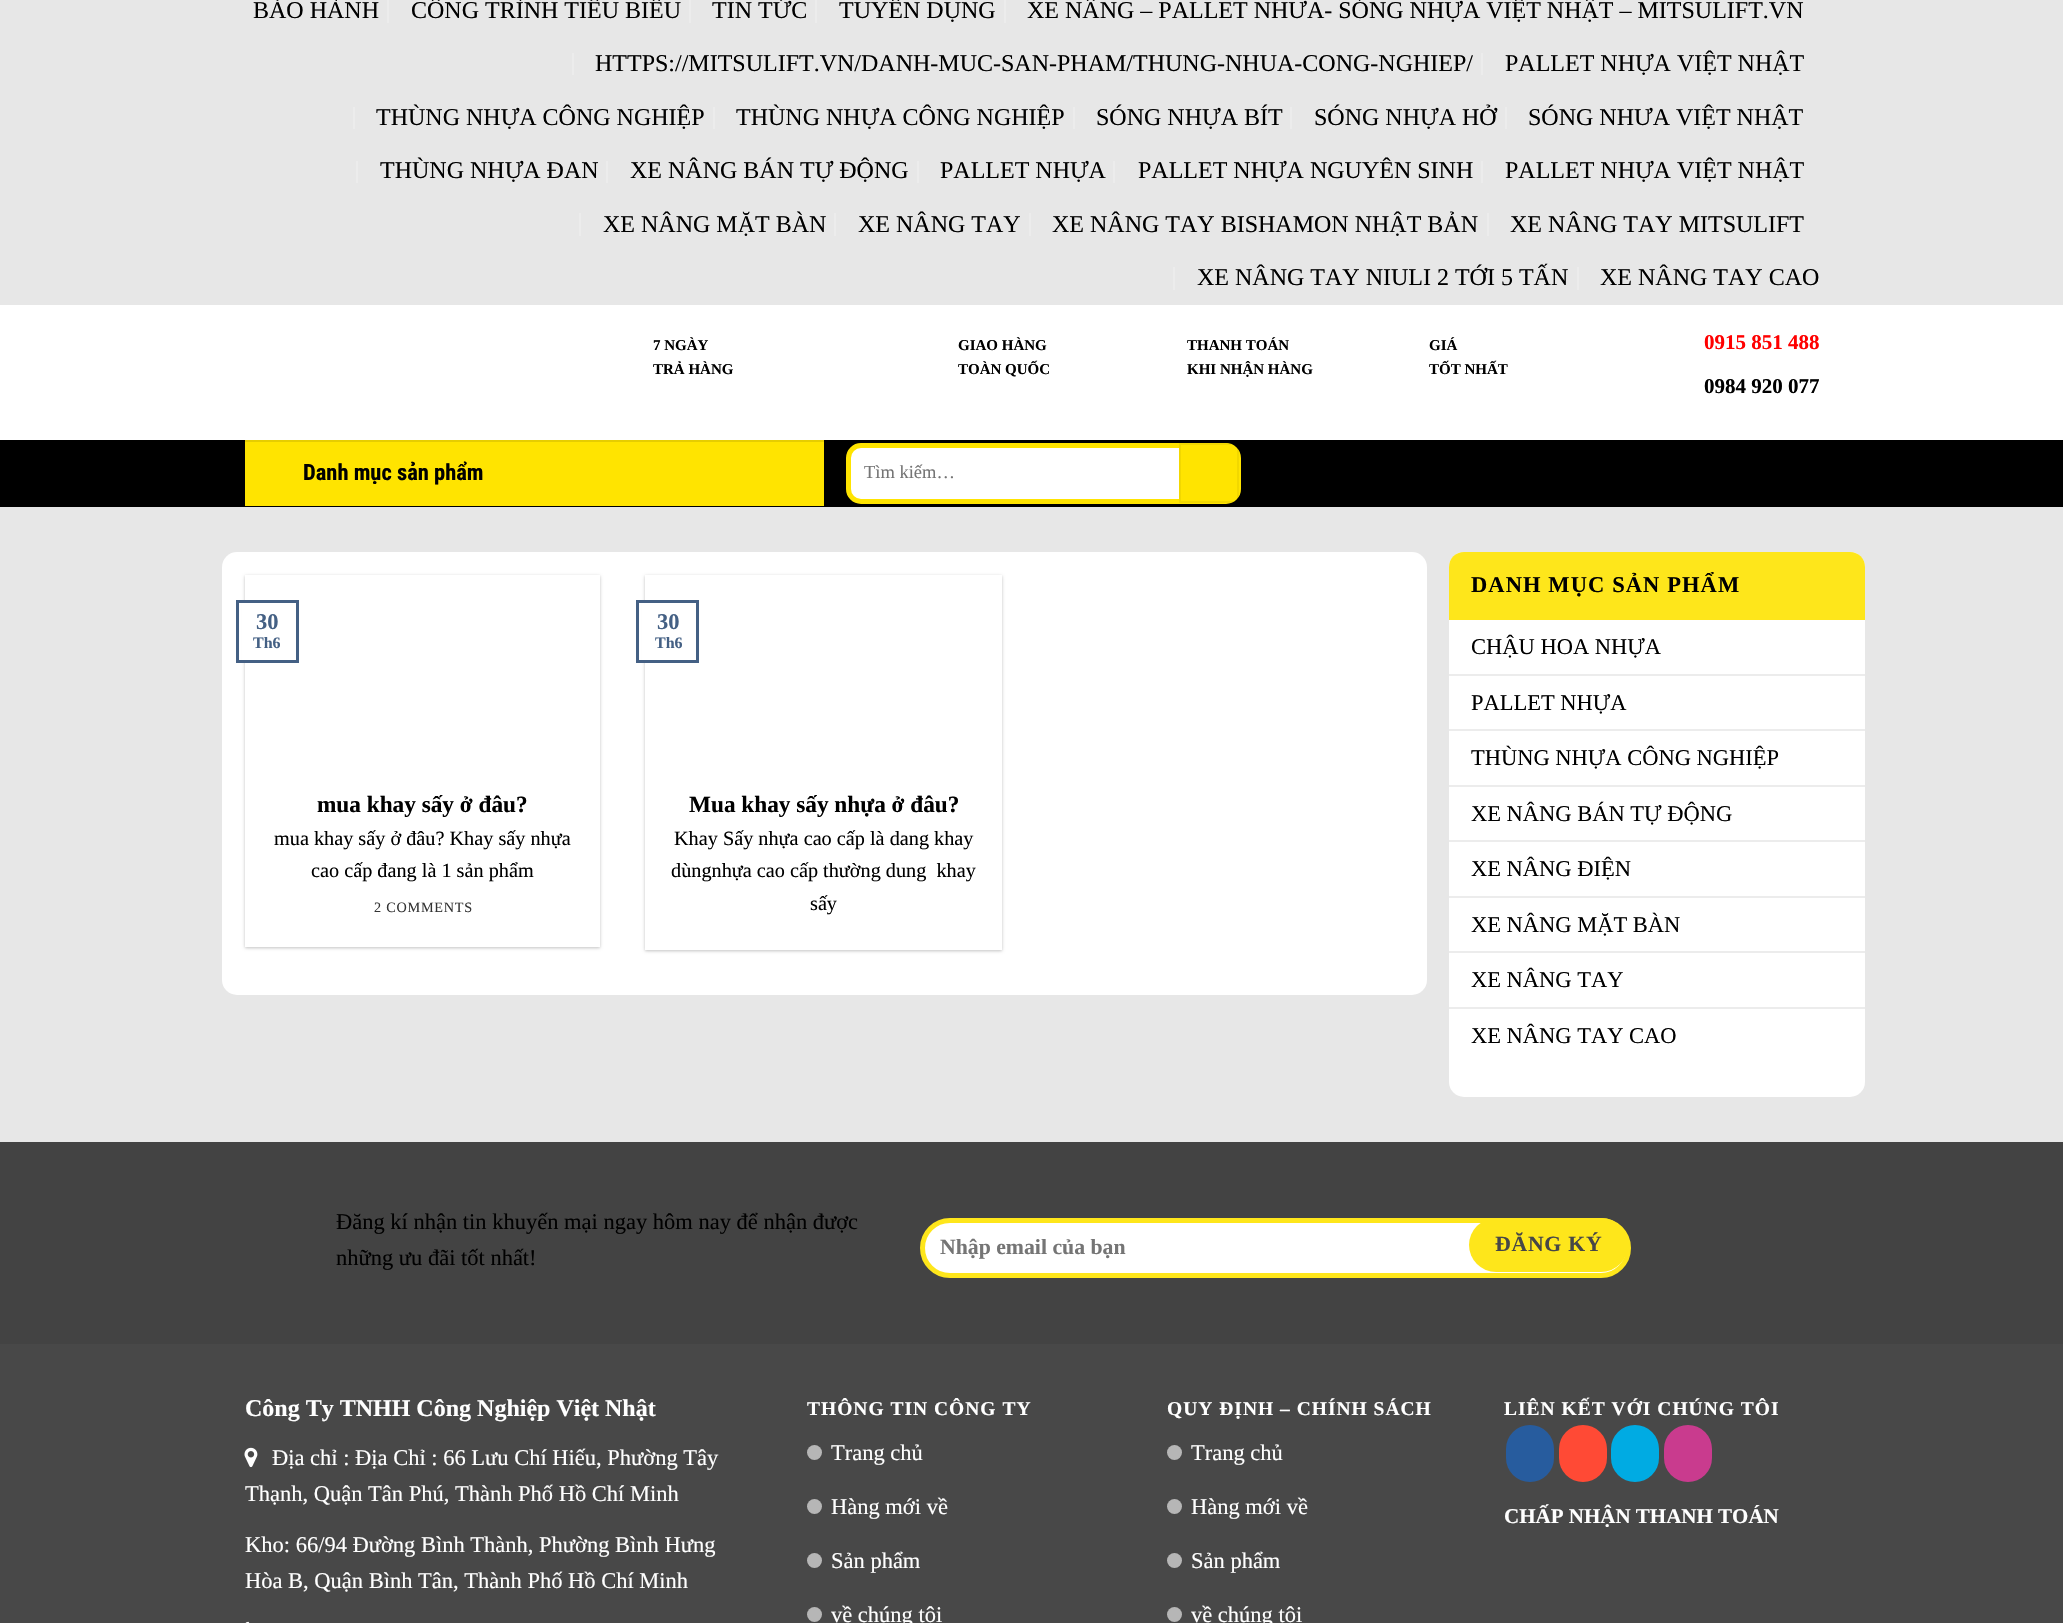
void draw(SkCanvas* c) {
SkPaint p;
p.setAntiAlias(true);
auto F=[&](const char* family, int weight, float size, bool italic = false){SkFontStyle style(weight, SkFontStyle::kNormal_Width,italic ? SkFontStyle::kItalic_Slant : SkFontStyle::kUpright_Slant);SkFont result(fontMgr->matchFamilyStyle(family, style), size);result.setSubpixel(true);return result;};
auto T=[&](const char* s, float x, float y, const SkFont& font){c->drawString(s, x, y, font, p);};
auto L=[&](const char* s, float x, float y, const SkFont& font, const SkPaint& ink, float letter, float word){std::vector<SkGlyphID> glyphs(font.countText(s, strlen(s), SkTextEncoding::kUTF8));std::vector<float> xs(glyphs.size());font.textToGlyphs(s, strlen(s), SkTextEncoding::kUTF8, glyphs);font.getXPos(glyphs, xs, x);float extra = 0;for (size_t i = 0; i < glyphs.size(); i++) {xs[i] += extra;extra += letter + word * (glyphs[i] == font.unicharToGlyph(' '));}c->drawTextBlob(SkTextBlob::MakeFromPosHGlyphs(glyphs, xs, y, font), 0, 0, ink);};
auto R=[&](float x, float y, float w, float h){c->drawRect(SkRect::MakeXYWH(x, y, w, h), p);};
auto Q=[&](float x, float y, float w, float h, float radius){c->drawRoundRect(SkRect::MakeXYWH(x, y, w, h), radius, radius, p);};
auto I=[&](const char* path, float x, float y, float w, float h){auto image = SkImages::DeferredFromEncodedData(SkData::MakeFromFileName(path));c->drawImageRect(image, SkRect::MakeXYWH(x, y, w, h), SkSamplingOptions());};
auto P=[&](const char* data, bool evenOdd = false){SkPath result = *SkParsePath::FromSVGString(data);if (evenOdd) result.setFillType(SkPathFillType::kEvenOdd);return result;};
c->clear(0xffffffff);
p.setColor(0xffe7e7e7);
R(0,0,2063,305);
auto f1 = F("Liberation Serif",400,24);
p.setColor(0xff000000);
T("BẢO HÀNH",253,18,f1);
p.setColor(0xffececec);
R(387,0,2,23);
p.setColor(0xff000000);
T("CÔNG TRÌNH TIÊU BIỂU",411,18,f1);
p.setColor(0xffececec);
R(689,0,2,23);
p.setColor(0xff000000);
T("TIN TỨC",712,18,f1);
p.setColor(0xffececec);
R(815,0,2,23);
p.setColor(0xff000000);
T("TUYỂN DỤNG",839,18,f1);
p.setColor(0xffececec);
R(1004,0,2,23);
p.setColor(0xff000000);
T("XE NÂNG – PALLET NHƯA- SÓNG NHỰA VIỆT NHẬT – MITSULIFT.VN",1027,18,f1);
p.setColor(0xffececec);
R(572,53,2,22);
p.setColor(0xff000000);
T("HTTPS://MITSULIFT.VN/DANH-MUC-SAN-PHAM/THUNG-NHUA-CONG-NGHIEP/",595,71,f1);
p.setColor(0xffececec);
R(1481,53,2,22);
p.setColor(0xff000000);
T("PALLET NHỰA VIỆT NHẬT",1505,71,f1);
p.setColor(0xffececec);
R(353,107,2,22);
p.setColor(0xff000000);
T("THÙNG NHỰA CÔNG NGHIỆP",376,125,f1);
p.setColor(0xffececec);
R(713,107,2,22);
p.setColor(0xff000000);
T("THÙNG NHỰA CÔNG NGHIỆP",736,125,f1);
p.setColor(0xffececec);
R(1073,107,2,22);
p.setColor(0xff000000);
T("SÓNG NHỰA BÍT",1096,125,f1);
p.setColor(0xffececec);
R(1290,107,2,22);
p.setColor(0xff000000);
T("SÓNG NHỰA HỞ",1314,125,f1);
p.setColor(0xffececec);
R(1505,107,2,22);
p.setColor(0xff000000);
T("SÓNG NHƯA VIỆT NHẬT",1528,125,f1);
p.setColor(0xffececec);
R(356,161,2,22);
p.setColor(0xff000000);
T("THÙNG NHỰA ĐAN",380,178,f1);
p.setColor(0xffececec);
R(606,161,2,22);
p.setColor(0xff000000);
T("XE NÂNG BÁN TỰ ĐỘNG",630,178,f1);
p.setColor(0xffececec);
R(917,161,2,22);
p.setColor(0xff000000);
T("PALLET NHỰA",940,178,f1);
p.setColor(0xffececec);
R(1113,161,2,22);
p.setColor(0xff000000);
T("PALLET NHỰA NGUYÊN SINH",1138,178,f1);
p.setColor(0xffececec);
R(1481,161,2,22);
p.setColor(0xff000000);
T("PALLET NHỰA VIỆT NHẬT",1505,178,f1);
p.setColor(0xffececec);
R(579,213,2,23);
p.setColor(0xff000000);
T("XE NÂNG MẶT BÀN",603,232,f1);
p.setColor(0xffececec);
R(834,213,2,23);
p.setColor(0xff000000);
T("XE NÂNG TAY",858,232,f1);
p.setColor(0xffececec);
R(1029,213,2,23);
p.setColor(0xff000000);
T("XE NÂNG TAY BISHAMON NHẬT BẢN",1052,232,f1);
p.setColor(0xffececec);
R(1487,213,2,23);
p.setColor(0xff000000);
T("XE NÂNG TAY MITSULIFT",1510,232,f1);
p.setColor(0xffececec);
R(1173,267,2,23);
p.setColor(0xff000000);
T("XE NÂNG TAY NIULI 2 TỚI 5 TẤN",1197,285,f1);
p.setColor(0xffececec);
R(1577,267,2,23);
p.setColor(0xff000000);
T("XE NÂNG TAY CAO",1600,285,f1);
auto f2 = F("Liberation Serif",700,15);
T("7 NGÀY",653,350,f2);
T("TRẢ HÀNG",653,374,f2);
T("GIAO HÀNG",958,350,f2);
T("TOÀN QUỐC",958,374,f2);
T("THANH TOÁN",1187,350,f2);
T("KHI NHẬN HÀNG",1187,374,f2);
T("GIÁ",1429,350,f2);
T("TỐT NHẤT",1429,374,f2);
auto f3 = F("Liberation Serif",700,21);
p.setColor(0xffff0000);
T("0915 851 488",1704,349,f3);
p.setColor(0xff000000);
T("0984 920 077",1704,393,f3);
R(0,440,2063,67);
p.setColor(0xffffe400);
R(245,442,579,64);
p.setColor(0xffe6cd00);
R(245,440,579,2);
auto f4 = F("Roboto Condensed",700,22.5);
p.setColor(0xff000000);
T("Danh mục sản phẩm",303,480,f4);
p.setColor(0xffffffff);
c->drawRoundRect(SkRect::MakeXYWH(848.5,445.5,390,56),12.5,12.5,p);
p.setStroke(true);
p.setStrokeWidth(5);
p.setColor(0xffffe400);
c->drawRoundRect(SkRect::MakeXYWH(848.5,445.5,390,56),12.5,12.5,p);
auto f5 = F("Liberation Serif",400,18.5);
p.setStroke(false);
p.setColor(0xff757575);
T("Tìm kiếm…",864,478,f5);
p.setColor(0xffffe400);
c->drawPath(P("M1179 443h45c8.5 0 15 6.5 15 15v30c0 8.5-6.5 15-15 15h-45z"),p);
p.setStroke(true);
p.setStrokeWidth(2);
p.setColor(0x0d000000);
c->drawRect(SkRect::MakeXYWH(1180,444,58,58),p);
p.setStroke(false);
p.setColor(0xffe7e7e7);
R(0,507,2063,635);
p.setColor(0xffffffff);
Q(222,552,1205,443,15);
p.setColor(0x3d000000);
p.setMaskFilter(SkMaskFilter::MakeBlur(kNormal_SkBlurStyle, 1.5));
c->drawRect(SkRect::MakeXYWH(245,576,355,372),p);
p.setMaskFilter(nullptr);
p.setColor(0xffffffff);
R(245,575,355,372);
R(242,603,3,57);
p.setStroke(true);
p.setStrokeWidth(3);
p.setColor(0xff446084);
c->drawRect(SkRect::MakeXYWH(237.5,601.5,60,60),p);
auto f6 = F("Liberation Serif",700,22.5);
p.setStroke(false);
T("30",256,629,f6);
auto f7 = F("Liberation Serif",700,16);
T("Th6",253,648,f7);
auto f8 = F("Liberation Serif",700,23.25);
p.setColor(0xff000000);
T("mua khay sấy ở đâu?",317,812,f8);
auto f9 = F("Liberation Serif",400,20.25);
T("mua khay sấy ở đâu? Khay sấy nhựa",274,845,f9);
T("cao cấp đang là 1 sản phẩm",311,877,f9);
auto f10 = F("Liberation Serif",400,14.25);
p.setColor(0xff333333);
L("2 COMMENTS",374,912,f10,p,.75,0);
p.setColor(0x3d000000);
p.setMaskFilter(SkMaskFilter::MakeBlur(kNormal_SkBlurStyle, 1.5));
c->drawRect(SkRect::MakeXYWH(645,576,357,375),p);
p.setMaskFilter(nullptr);
p.setColor(0xffffffff);
R(645,575,357,375);
R(642,603,3,57);
p.setStroke(true);
p.setColor(0xff446084);
c->drawRect(SkRect::MakeXYWH(637.5,601.5,60,60),p);
p.setStroke(false);
T("30",657,629,f6);
T("Th6",655,648,f7);
p.setColor(0xff000000);
T("Mua khay sấy nhựa ở đâu?",689,812,f8);
T("Khay Sấy nhựa cao cấp là dang khay",674,845,f9);
T("dùngnhựa cao cấp thường dung  khay",671,877,f9);
T("sấy",810,910,f9);
p.setColor(0xffffffff);
Q(1449,552,416,545,15);
p.setColor(0xfffee61b);
c->drawPath(P("M1464 552h386c8.5 0 15 6.5 15 15v53h-416v-53c0-8.5 6.5-15 15-15z"),p);
p.setColor(0xff000000);
L("DANH MỤC SẢN PHẨM",1471,592,f6,p,1.1,0);
auto f11 = F("Liberation Serif",400,22.5);
T("CHẬU HOA NHỰA",1471,654,f11);
p.setColor(0xffececec);
R(1449,674,416,2);
p.setColor(0xff000000);
T("PALLET NHỰA",1471,710,f11);
p.setColor(0xffececec);
R(1449,729,416,2);
p.setColor(0xff000000);
T("THÙNG NHỰA CÔNG NGHIỆP",1471,765,f11);
p.setColor(0xffececec);
R(1449,785,416,2);
p.setColor(0xff000000);
T("XE NÂNG BÁN TỰ ĐỘNG",1471,821,f11);
p.setColor(0xffececec);
R(1449,840,416,2);
p.setColor(0xff000000);
T("XE NÂNG ĐIỆN",1471,876,f11);
p.setColor(0xffececec);
R(1449,896,416,2);
p.setColor(0xff000000);
T("XE NÂNG MẶT BÀN",1471,932,f11);
p.setColor(0xffececec);
R(1449,951,416,2);
p.setColor(0xff000000);
T("XE NÂNG TAY",1471,987,f11);
p.setColor(0xffececec);
R(1449,1007,416,2);
p.setColor(0xff000000);
T("XE NÂNG TAY CAO",1471,1043,f11);
p.setColor(0xff434343);
R(0,1142,2063,202);
p.setColor(0xff000000);
T("Đăng kí nhận tin khuyến mại ngay hôm nay để nhận được",336,1229,f11);
T("những ưu đãi tốt nhất!",336,1265,f11);
p.setColor(0xffffffff);
c->drawRoundRect(SkRect::MakeXYWH(922.5,1220.5,706,55),27.5,27.5,p);
p.setStroke(true);
p.setStrokeWidth(5);
p.setColor(0xfffee61b);
c->drawRoundRect(SkRect::MakeXYWH(922.5,1220.5,706,55),27.5,27.5,p);
auto f12 = F("Liberation Serif",700,21.75);
p.setStroke(false);
p.setColor(0xff757575);
T("Nhập email của bạn",940,1254,f12);
p.setColor(0xfffee61b);
Q(1469,1218,159,54,27);
p.setColor(0xff474747);
L("ĐĂNG KÝ",1495,1251,f12,p,.75,0);
p.setColor(0xff484848);
R(0,1344,2063,279);
auto f13 = F("Liberation Serif",700,24);
p.setColor(0xffffffff);
T("Công Ty TNHH Công Nghiệp Việt Nhật",245,1416,f13);
I("1.png",244,1447,14,21);
T("Địa chỉ : Địa Chỉ : 66 Lưu Chí Hiếu, Phường Tây",272,1465,f11);
T("Thạnh, Quận Tân Phú, Thành Phố Hồ Chí Minh",245,1501,f11);
T("Kho: 66/94 Đường Bình Thành, Phường Bình Hưng",245,1552,f11);
T("Hòa B, Quận Bình Tân, Thành Phố Hồ Chí Minh",245,1588,f11);
I("2.png",245,1621,5,2);
auto f14 = F("Liberation Serif",700,19.5);
L("THÔNG TIN CÔNG TY",807,1415,f14,p,1,0);
p.setColor(0xffb6b6b6);
c->drawCircle(814.5,1452.5,7.5,p);
p.setColor(0xffffffff);
T("Trang chủ",831,1460,f11);
p.setColor(0xffb6b6b6);
c->drawCircle(814.5,1506.5,7.5,p);
p.setColor(0xffffffff);
T("Hàng mới về",831,1514,f11);
p.setColor(0xffb6b6b6);
c->drawCircle(814.5,1560.5,7.5,p);
p.setColor(0xffffffff);
T("Sản phẩm",831,1568,f11);
p.setColor(0xffb6b6b6);
c->drawCircle(814.5,1614.5,7.5,p);
p.setColor(0xffffffff);
T("về chúng tôi",831,1622,f11);
L("QUY ĐỊNH – CHÍNH SÁCH",1167,1415,f14,p,1,0);
p.setColor(0xffb6b6b6);
c->drawCircle(1174.5,1452.5,7.5,p);
p.setColor(0xffffffff);
T("Trang chủ",1191,1460,f11);
p.setColor(0xffb6b6b6);
c->drawCircle(1174.5,1506.5,7.5,p);
p.setColor(0xffffffff);
T("Hàng mới về",1191,1514,f11);
p.setColor(0xffb6b6b6);
c->drawCircle(1174.5,1560.5,7.5,p);
p.setColor(0xffffffff);
T("Sản phẩm",1191,1568,f11);
p.setColor(0xffb6b6b6);
c->drawCircle(1174.5,1614.5,7.5,p);
p.setColor(0xffffffff);
T("về chúng tôi",1191,1622,f11);
L("LIÊN KẾT VỚI CHÚNG TÔI",1504,1415,f14,p,1,0);
p.setColor(0xff275c9e);
Q(1506,1425,48,57,24);
p.setColor(0xffff4a35);
Q(1559,1425,48,57,24);
p.setColor(0xff00abe3);
Q(1611,1425,48,57,24);
p.setColor(0xffc93b8e);
Q(1664,1425,48,57,24);
p.setColor(0xffffffff);
T("CHẤP NHẬN THANH TOÁN",1504,1523,f3);
}
